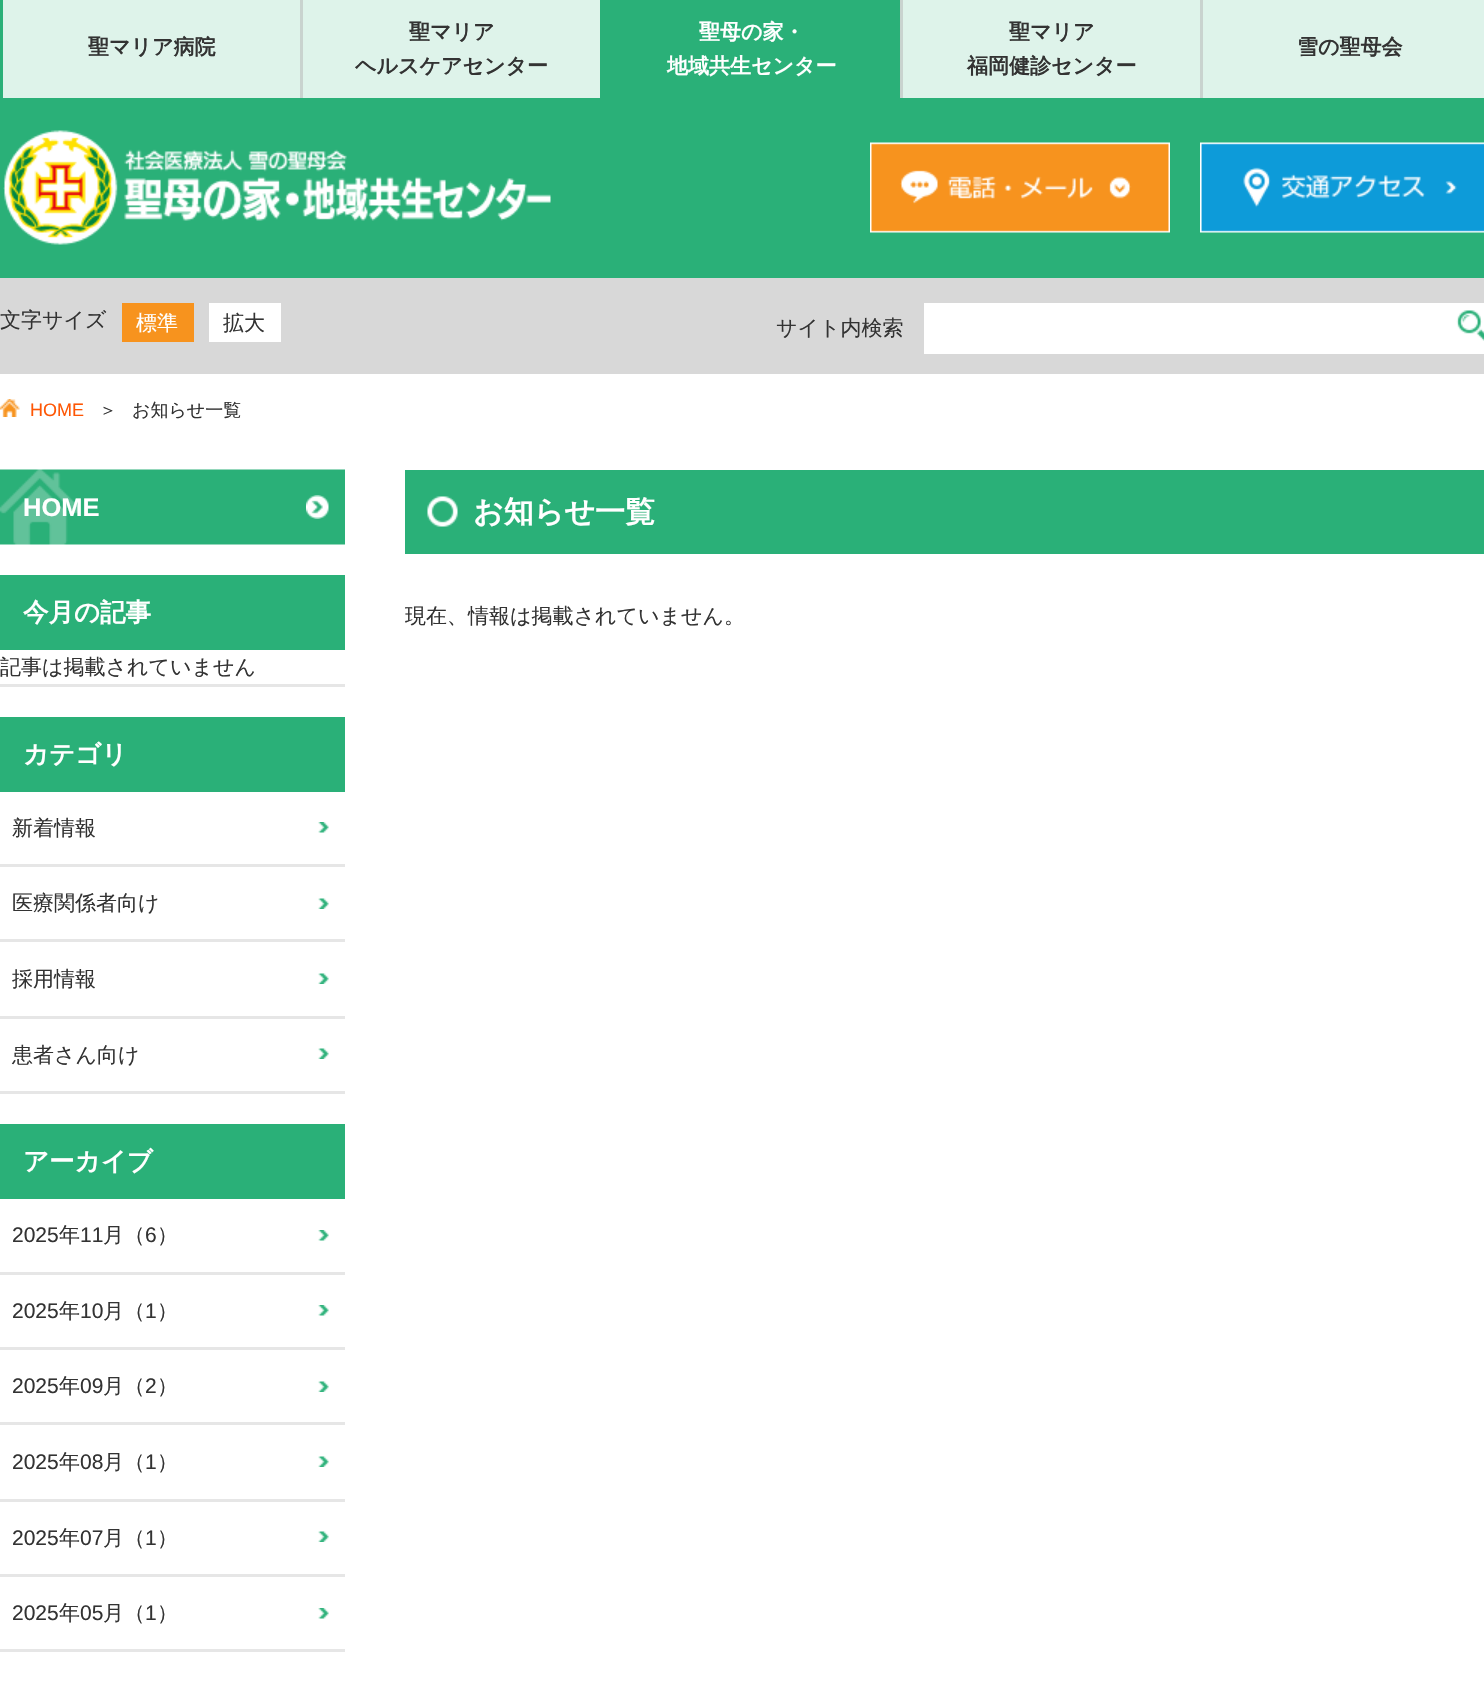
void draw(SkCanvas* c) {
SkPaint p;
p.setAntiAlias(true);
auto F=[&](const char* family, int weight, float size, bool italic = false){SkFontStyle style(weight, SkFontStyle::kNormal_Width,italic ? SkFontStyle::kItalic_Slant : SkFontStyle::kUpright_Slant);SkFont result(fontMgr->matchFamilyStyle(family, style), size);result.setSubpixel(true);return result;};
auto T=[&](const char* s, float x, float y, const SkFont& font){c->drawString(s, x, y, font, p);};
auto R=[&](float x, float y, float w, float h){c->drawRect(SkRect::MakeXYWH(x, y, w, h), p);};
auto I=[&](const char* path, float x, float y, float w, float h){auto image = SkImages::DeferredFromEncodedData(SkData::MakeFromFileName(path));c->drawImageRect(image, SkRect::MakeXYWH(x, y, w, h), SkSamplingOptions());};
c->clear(0xffffffff);
p.setColor(0xffdef3ea);
R(3,0,1481,98);
p.setColor(0xff2ab078);
R(0,0,3,98);
auto f1 = F("WenQuanYi Zen Hei",700,21);
p.setColor(0xff333333);
T("聖マリア病院",88,54,f1);
p.setColor(0xffc9d3cf);
R(300,0,3,98);
p.setColor(0xff333333);
T("聖マリア",409,39,f1);
T("ヘルスケアセンター",355,73,f1);
p.setColor(0xff2ab078);
R(600,0,300,98);
p.setColor(0xffffffff);
T("聖母の家・",699,39,f1);
T("地域共生センター",667,73,f1);
p.setColor(0xffc9d3cf);
R(900,0,3,98);
p.setColor(0xff333333);
T("聖マリア",1009,39,f1);
T("福岡健診センター",967,73,f1);
p.setColor(0xffc9d3cf);
R(1200,0,3,98);
p.setColor(0xff333333);
T("雪の聖母会",1297,54,f1);
p.setColor(0xff2ab078);
R(0,98,1484,180);
I("1.png",3,130,548,115);
I("2.png",870,142,300,91);
I("3.png",1200,142,284,91);
p.setColor(0xffd8d8d8);
R(0,278,1484,96);
auto f2 = F("WenQuanYi Zen Hei",500,21);
p.setColor(0xff333333);
T("文字サイズ",0,327,f2);
p.setColor(0xfff7931e);
R(122,303,72,39);
p.setColor(0xffffffff);
T("標準",136,330,f2);
R(209,303,72,39);
p.setColor(0xff333333);
T("拡大",223,330,f2);
p.setColor(0xffffffff);
R(924,303,560,51);
p.setColor(0xff333333);
T("サイト内検索",776,335,f2);
I("4.png",1456,310,28,31);
I("5.png",0,399,20,18);
auto f3 = F("Liberation Sans",400,18);
p.setColor(0xfffe5604);
T("HOME",30,416,f3);
auto f4 = F("WenQuanYi Zen Hei",500,18);
p.setColor(0xff333333);
T("＞",99,416,f4);
T("お知らせ一覧",132,416,f4);
I("6.png",0,469,345,76);
I("7.png",306,495,23,24);
auto f5 = F("Liberation Sans",700,25.5);
p.setColor(0xffffffff);
T("HOME",23,516,f5);
p.setColor(0xff2ab078);
R(0,575,345,75);
auto f6 = F("WenQuanYi Zen Hei",700,25.5);
p.setColor(0xffffffff);
T("今月の記事",23,621,f6);
p.setColor(0xffe6e6e6);
R(0,684,345,3);
p.setColor(0xff333333);
T("記事は掲載されていません",0,674,f2);
p.setColor(0xff2ab078);
R(0,717,345,75);
p.setColor(0xffffffff);
T("カテゴリ",23,763,f6);
p.setColor(0xffe6e6e6);
R(0,864,345,3);
I("8.png",318,822,11,11);
p.setColor(0xff333333);
T("新着情報",12,835,f2);
p.setColor(0xffe6e6e6);
R(0,939,345,3);
I("9.png",318,898,11,11);
p.setColor(0xff333333);
T("医療関係者向け",12,910,f2);
p.setColor(0xffe6e6e6);
R(0,1016,345,3);
I("9.png",318,973,11,11);
p.setColor(0xff333333);
T("採用情報",12,986,f2);
p.setColor(0xffe6e6e6);
R(0,1091,345,3);
I("9.png",318,1048,11,11);
p.setColor(0xff333333);
T("患者さん向け",12,1062,f2);
p.setColor(0xff2ab078);
R(0,1124,345,75);
p.setColor(0xffffffff);
T("アーカイブ",23,1170,f6);
p.setColor(0xffe6e6e6);
R(0,1272,345,3);
I("8.png",318,1230,11,11);
auto f7 = F("Liberation Sans",400,21);
p.setColor(0xff333333);
T("2025",12,1242,f7);
T("年",59,1242,f2);
T("11",80,1242,f7);
T("月（",103,1242,f2);
T("6",145,1242,f7);
T("）",157,1242,f2);
p.setColor(0xffe6e6e6);
R(0,1347,345,3);
I("8.png",318,1305,11,11);
p.setColor(0xff333333);
T("2025",12,1318,f7);
T("年",59,1318,f2);
T("10",80,1318,f7);
T("月（",103,1318,f2);
T("1",145,1318,f7);
T("）",157,1318,f2);
p.setColor(0xffe6e6e6);
R(0,1422,345,3);
I("9.png",318,1381,11,11);
p.setColor(0xff333333);
T("2025",12,1393,f7);
T("年",59,1393,f2);
T("09",80,1393,f7);
T("月（",103,1393,f2);
T("2",145,1393,f7);
T("）",157,1393,f2);
p.setColor(0xffe6e6e6);
R(0,1499,345,3);
I("9.png",318,1456,11,11);
p.setColor(0xff333333);
T("2025",12,1469,f7);
T("年",59,1469,f2);
T("08",80,1469,f7);
T("月（",103,1469,f2);
T("1",145,1469,f7);
T("）",157,1469,f2);
p.setColor(0xffe6e6e6);
R(0,1574,345,3);
I("9.png",318,1531,11,11);
p.setColor(0xff333333);
T("2025",12,1545,f7);
T("年",59,1545,f2);
T("07",80,1545,f7);
T("月（",103,1545,f2);
T("1",145,1545,f7);
T("）",157,1545,f2);
p.setColor(0xffe6e6e6);
R(0,1649,345,3);
I("8.png",318,1608,11,11);
p.setColor(0xff333333);
T("2025",12,1620,f7);
T("年",59,1620,f2);
T("05",80,1620,f7);
T("月（",103,1620,f2);
T("1",145,1620,f7);
T("）",157,1620,f2);
p.setColor(0xff2ab078);
R(405,470,1079,84);
I("10.png",427,496,31,31);
auto f8 = F("WenQuanYi Zen Hei",700,30);
p.setColor(0xffffffff);
T("お知らせ一覧",473,522,f8);
p.setColor(0xff333333);
T("現在、情報は掲載されていません。",405,623,f2);
}
